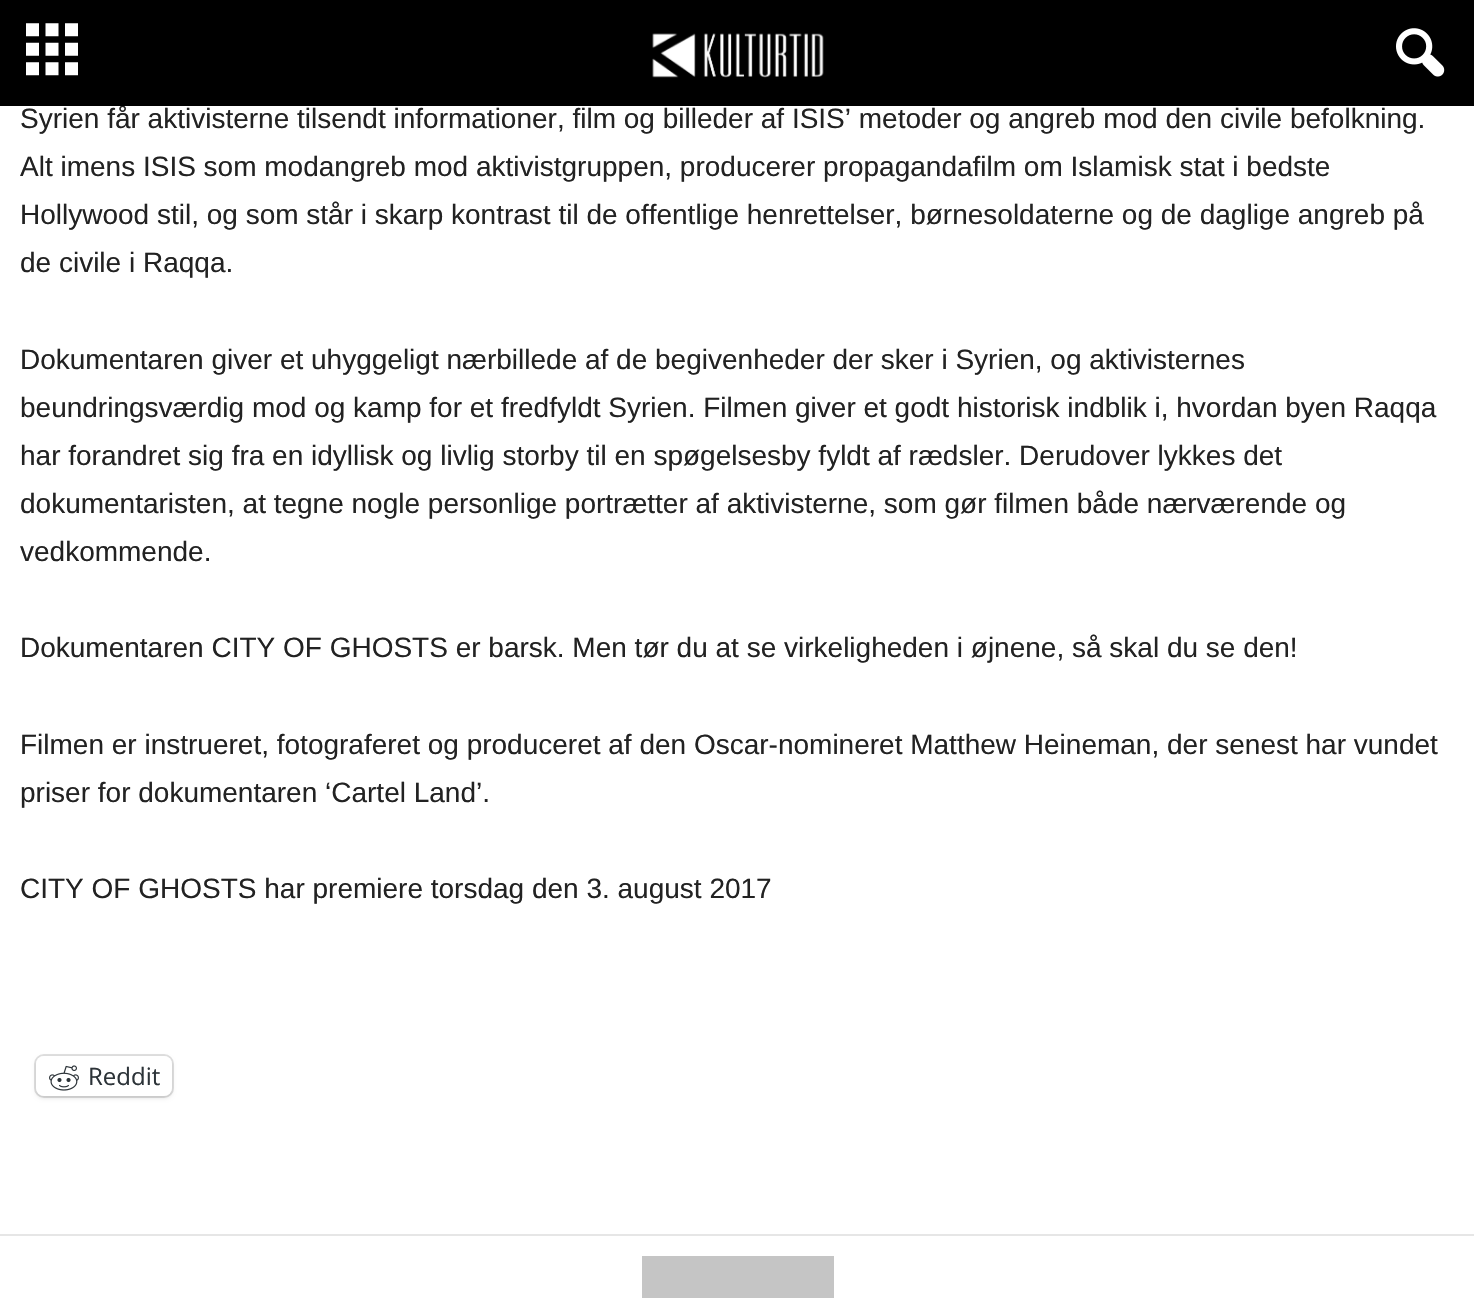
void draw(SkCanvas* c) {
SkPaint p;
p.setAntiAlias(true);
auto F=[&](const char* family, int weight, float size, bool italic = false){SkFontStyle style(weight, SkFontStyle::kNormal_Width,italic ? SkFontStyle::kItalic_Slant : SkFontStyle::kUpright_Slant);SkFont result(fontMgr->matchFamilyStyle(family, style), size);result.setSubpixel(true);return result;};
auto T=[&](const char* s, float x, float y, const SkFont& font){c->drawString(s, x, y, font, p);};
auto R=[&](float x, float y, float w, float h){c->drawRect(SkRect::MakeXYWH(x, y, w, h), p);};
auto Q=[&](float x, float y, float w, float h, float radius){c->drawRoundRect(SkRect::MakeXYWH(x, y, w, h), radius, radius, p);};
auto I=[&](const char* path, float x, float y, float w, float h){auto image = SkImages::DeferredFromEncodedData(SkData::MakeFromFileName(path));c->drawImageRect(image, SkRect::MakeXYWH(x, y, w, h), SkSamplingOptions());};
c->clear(0xffffffff);
auto f1 = F("Liberation Sans",400,28);
p.setColor(0xff222222);
T("Syrien får aktivisterne tilsendt informationer, film og billeder af ISIS’ metoder og angreb mod den civile befolkning.",20,128,f1);
p.setColor(0xff000000);
R(0,0,1474,106);
I("1.png",26,23,52,53);
I("2.png",652,33,172,45);
I("3.png",1396,28,49,49);
p.setColor(0xff222222);
T("Alt imens ISIS som modangreb mod aktivistgruppen, producerer propagandafilm om Islamisk stat i bedste",20,176,f1);
T("Hollywood stil, og som står i skarp kontrast til de offentlige henrettelser, børnesoldaterne og de daglige angreb på",20,224,f1);
T("de civile i Raqqa.",20,272,f1);
T("Dokumentaren giver et uhyggeligt nærbillede af de begivenheder der sker i Syrien, og aktivisternes",20,369,f1);
T("beundringsværdig mod og kamp for et fredfyldt Syrien. Filmen giver et godt historisk indblik i, hvordan byen Raqqa",20,417,f1);
T("har forandret sig fra en idyllisk og livlig storby til en spøgelsesby fyldt af rædsler. Derudover lykkes det",20,465,f1);
T("dokumentaristen, at tegne nogle personlige portrætter af aktivisterne, som gør filmen både nærværende og",20,513,f1);
T("vedkommende.",20,561,f1);
T("Dokumentaren CITY OF GHOSTS er barsk. Men tør du at se virkeligheden i øjnene, så skal du se den!",20,657,f1);
T("Filmen er instrueret, fotograferet og produceret af den Oscar-nomineret Matthew Heineman, der senest har vundet",20,754,f1);
T("priser for dokumentaren ‘Cartel Land’.",20,802,f1);
T("CITY OF GHOSTS har premiere torsdag den 3. august 2017",20,898,f1);
p.setStroke(true);
p.setStrokeWidth(2);
p.setColor(0xffe0e0e0);
c->drawRoundRect(SkRect::MakeXYWH(35,1055,138,42),9,9,p);
p.setStroke(false);
p.setColor(0x1f000000);
p.setMaskFilter(SkMaskFilter::MakeBlur(kNormal_SkBlurStyle, 2));
c->drawRoundRect(SkRect::MakeXYWH(36,1058,136,40),8,8,p);
p.setMaskFilter(nullptr);
p.setColor(0xffffffff);
Q(36,1056,136,40,8);
I("4.png",49,1065,30,26);
auto f2 = F("Open Sans",400,24);
p.setColor(0xff2c3338);
T("Reddit",88,1085,f2);
p.setColor(0xffe6e6e6);
R(0,1234,1474,2);
p.setColor(0xffc5c5c5);
R(642,1256,192,42);
}
